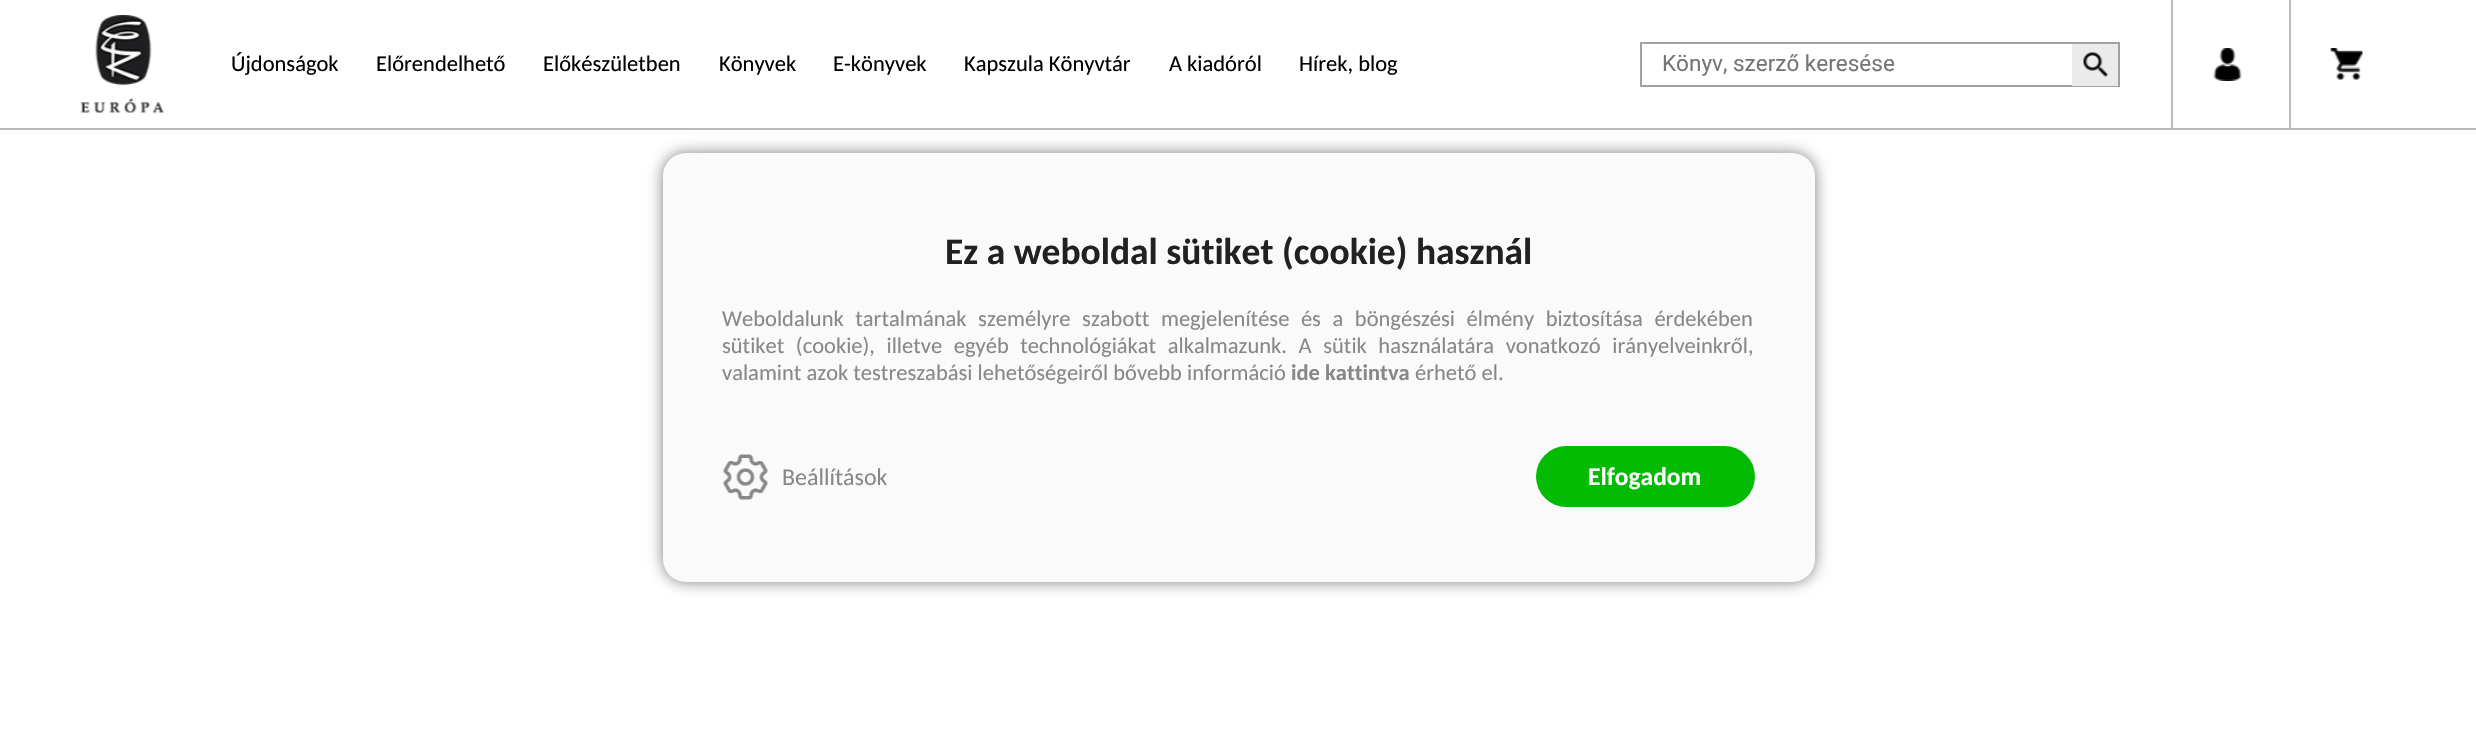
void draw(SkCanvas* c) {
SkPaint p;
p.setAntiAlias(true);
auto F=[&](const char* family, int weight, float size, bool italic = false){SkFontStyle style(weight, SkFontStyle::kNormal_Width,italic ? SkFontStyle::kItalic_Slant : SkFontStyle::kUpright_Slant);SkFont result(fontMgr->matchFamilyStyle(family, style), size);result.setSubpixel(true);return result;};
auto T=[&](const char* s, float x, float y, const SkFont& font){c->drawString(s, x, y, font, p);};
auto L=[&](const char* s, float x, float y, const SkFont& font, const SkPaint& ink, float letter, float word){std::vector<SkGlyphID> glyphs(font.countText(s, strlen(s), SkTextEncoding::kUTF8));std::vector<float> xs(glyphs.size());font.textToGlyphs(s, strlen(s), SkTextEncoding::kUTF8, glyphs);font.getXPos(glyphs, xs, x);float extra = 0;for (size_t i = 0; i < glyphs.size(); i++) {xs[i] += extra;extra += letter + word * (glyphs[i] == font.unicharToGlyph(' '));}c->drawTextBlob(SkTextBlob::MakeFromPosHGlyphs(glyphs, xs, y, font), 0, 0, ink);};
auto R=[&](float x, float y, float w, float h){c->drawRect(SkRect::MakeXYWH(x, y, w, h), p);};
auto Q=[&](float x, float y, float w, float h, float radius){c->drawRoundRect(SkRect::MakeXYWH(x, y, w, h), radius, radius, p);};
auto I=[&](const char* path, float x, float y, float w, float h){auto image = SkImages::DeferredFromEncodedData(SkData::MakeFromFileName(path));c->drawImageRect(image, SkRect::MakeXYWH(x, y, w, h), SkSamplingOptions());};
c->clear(0xffffffff);
p.setColor(0xffbcbcbc);
R(0,128,2476,2);
I("1.png",80,15,84,98);
auto f1 = F("Carlito",400,22.5);
p.setColor(0xff000000);
T("Újdonságok",231,71,f1);
T("Előrendelhető",376,71,f1);
T("Előkészületben",543,71,f1);
T("Könyvek",719,71,f1);
T("E-könyvek",833,71,f1);
T("Kapszula Könyvtár",964,71,f1);
T("A kiadóról",1169,71,f1);
T("Hírek, blog",1299,71,f1);
p.setStroke(true);
p.setStrokeWidth(2);
p.setColor(0xffa1a1a1);
c->drawRect(SkRect::MakeXYWH(1641,43,478,43),p);
auto f2 = F("Roboto",400,22.5);
p.setStroke(false);
p.setColor(0xff757575);
T("Könyv, szerző keresése",1662,71,f2);
p.setColor(0xffebebeb);
R(2072,44,46,42);
I("2.png",2083,52,25,25);
p.setColor(0xffbcbcbc);
R(2171,0,2,128);
I("3.png",2213,48,29,33);
R(2289,0,2,128);
I("4.png",2330,48,33,32);
p.setColor(0x80000000);
p.setMaskFilter(SkMaskFilter::MakeBlur(kNormal_SkBlurStyle, 7.5));
c->drawRoundRect(SkRect::MakeXYWH(663,153,1152,429),23,23,p);
p.setMaskFilter(nullptr);
p.setColor(0xfffafafa);
Q(663,153,1152,429,23);
auto f3 = F("Carlito",700,37.5);
p.setColor(0xff212121);
T("Ez a weboldal sütiket (cookie) használ",945,264,f3);
p.setColor(0xff888888);
L("Weboldalunk tartalmának személyre szabott megjelenítése és a böngészési élmény biztosítása érdekében",722,326,f1,p,0,6.5);
L("sütiket (cookie), illetve egyéb technológiákat alkalmazunk. A sütik használatára vonatkozó irányelveinkről,",722,353,f1,p,0,6.5);
T("valamint azok testreszabási lehetőségeiről bővebb információ",722,380,f1);
auto f4 = F("Carlito",700,22.5);
T("ide kattintva",1291,380,f4);
T("érhető el.",1415,380,f1);
I("5.png",723,454,45,46);
auto f5 = F("Carlito",400,24);
T("Beállítások",782,485,f5);
p.setColor(0xff02bb02);
Q(1536,446,219,61,30.5);
auto f6 = F("Carlito",700,25.5);
p.setColor(0xfffafafa);
T("Elfogadom",1588,485,f6);
}
